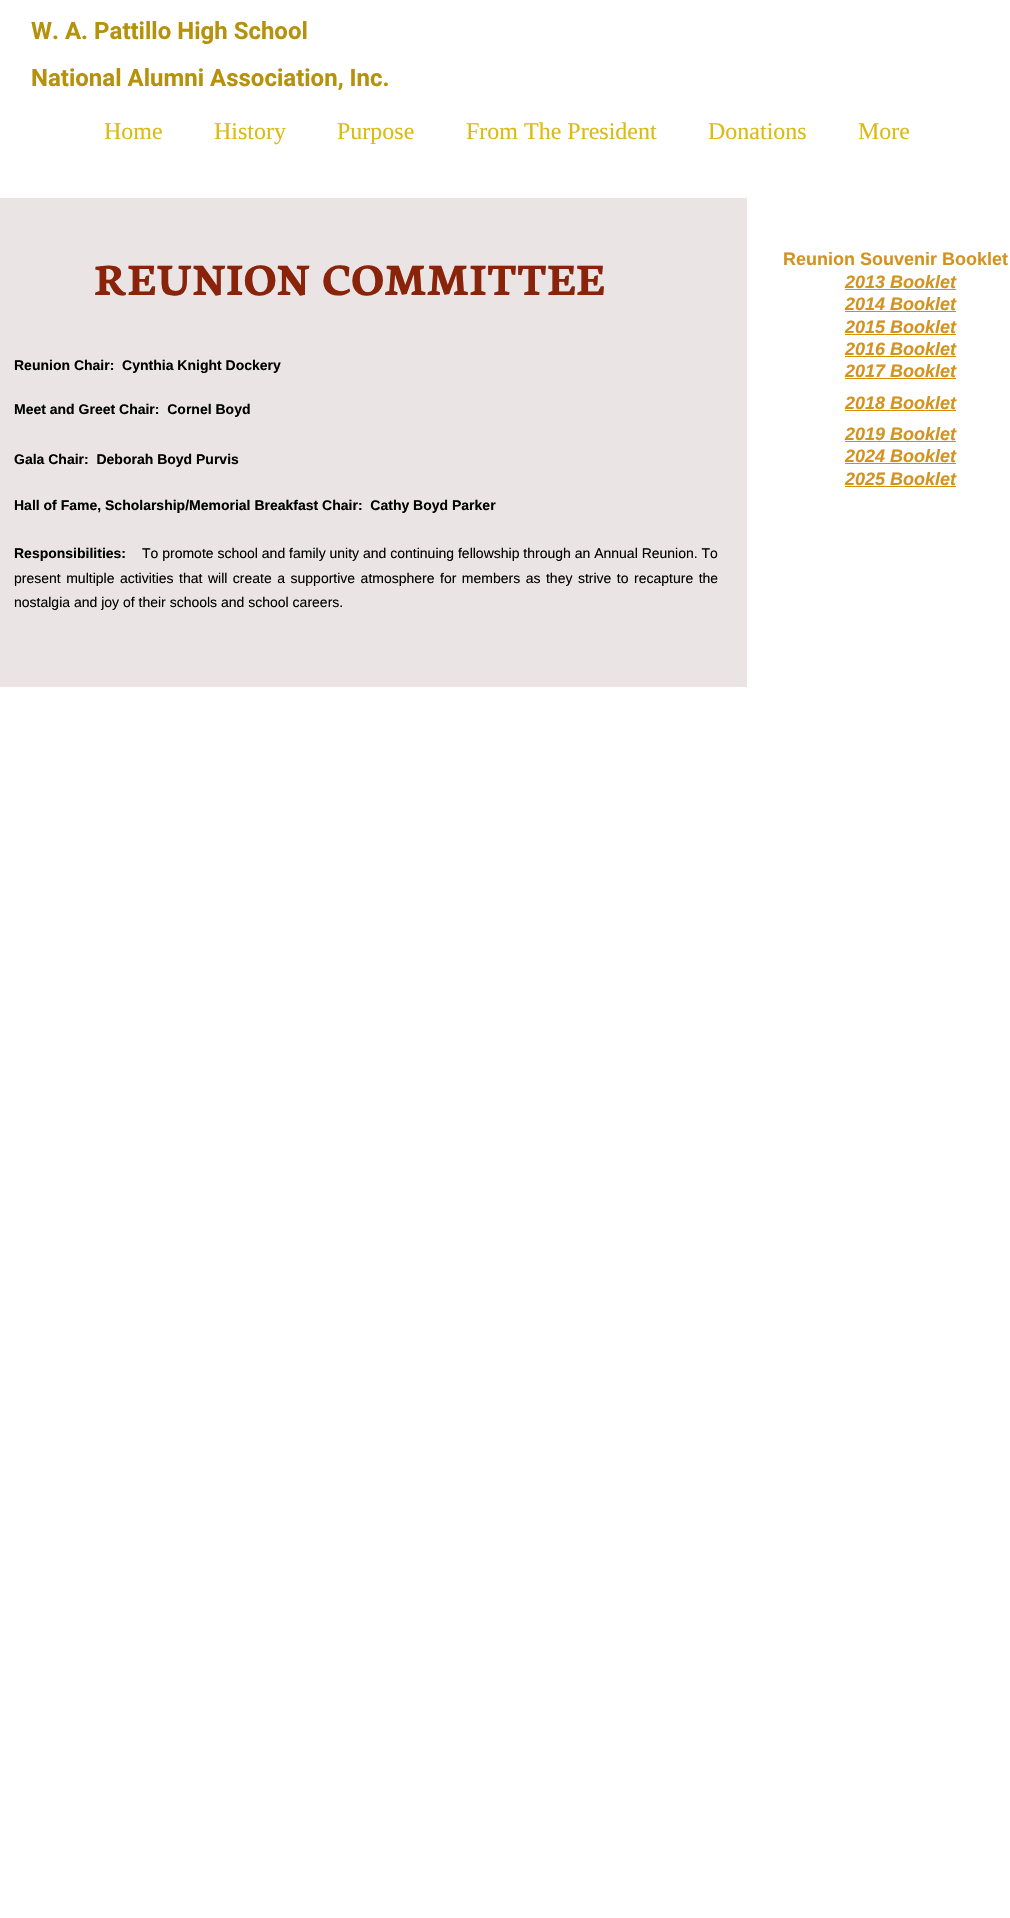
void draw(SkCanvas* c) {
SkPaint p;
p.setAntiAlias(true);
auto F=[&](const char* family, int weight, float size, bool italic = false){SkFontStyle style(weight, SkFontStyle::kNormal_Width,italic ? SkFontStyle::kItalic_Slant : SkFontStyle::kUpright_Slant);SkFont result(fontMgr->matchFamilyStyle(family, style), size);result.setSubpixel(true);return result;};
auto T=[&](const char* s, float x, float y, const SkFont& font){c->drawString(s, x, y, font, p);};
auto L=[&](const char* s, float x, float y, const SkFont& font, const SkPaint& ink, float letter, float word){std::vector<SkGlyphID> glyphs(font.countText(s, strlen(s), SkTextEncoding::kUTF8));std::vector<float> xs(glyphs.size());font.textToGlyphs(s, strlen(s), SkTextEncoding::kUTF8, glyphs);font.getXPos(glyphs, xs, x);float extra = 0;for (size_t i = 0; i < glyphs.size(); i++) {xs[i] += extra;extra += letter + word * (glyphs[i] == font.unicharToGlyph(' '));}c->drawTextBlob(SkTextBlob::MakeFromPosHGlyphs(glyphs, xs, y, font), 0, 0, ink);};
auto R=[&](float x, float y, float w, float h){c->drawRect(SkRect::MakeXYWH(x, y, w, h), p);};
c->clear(0xffffffff);
auto f1 = F("Roboto",700,24);
p.setColor(0xffb6910c);
T("W. A. Pattillo High School",31,39,f1);
T("National Alumni Association, Inc.",31,86,f1);
auto f2 = F("Liberation Serif",400,24);
p.setColor(0xffdbba14);
T("Home",104,139,f2);
T("History",214,139,f2);
T("Purpose",337,139,f2);
T("From The President",466,139,f2);
T("Donations",708,139,f2);
T("More",858,139,f2);
p.setColor(0xffebe4e4);
R(0,198,747,489);
auto f3 = F("Neuton",700,48);
p.setColor(0xff89240b);
T("REUNION COMMITTEE",94,295,f3);
auto f4 = F("Liberation Sans",700,14);
p.setColor(0xff000000);
T("Reunion Chair:  Cynthia Knight Dockery",14,370,f4);
T("Meet and Greet Chair:  Cornel Boyd",14,414,f4);
T("Gala Chair:  Deborah Boyd Purvis",14,464,f4);
T("Hall of Fame, Scholarship/Memorial Breakfast Chair:  Cathy Boyd Parker",14,510,f4);
T("Responsibilities:",14,558,f4);
auto f5 = F("Liberation Sans",400,14);
T("To promote school and family unity and continuing fellowship through an Annual Reunion. To",142,558,f5);
L("present multiple activities that will create a supportive atmosphere for members as they strive to recapture the",14,583,f5,p,0,1.6);
T("nostalgia and joy of their schools and school careers.",14,607,f5);
auto f6 = F("Liberation Sans",700,18);
p.setColor(0xffd39322);
T("Reunion Souvenir Booklet",783,265,f6);
auto f7 = F("Liberation Sans",700,18,true);
T("2013 Booklet",845,288,f7);
R(845,289,111,1);
T("2014 Booklet",845,310,f7);
p.setColor(0xffd88d08);
R(845,311,111,1);
p.setColor(0xffd39322);
T("2015 Booklet",845,333,f7);
p.setColor(0xffd88d08);
R(845,334,111,1);
p.setColor(0xffd39322);
T("2016 Booklet",845,355,f7);
p.setColor(0xffd88d08);
R(845,356,111,1);
p.setColor(0xffd39322);
T("2017 Booklet",845,377,f7);
p.setColor(0xffd88d08);
R(845,378,111,1);
p.setColor(0xffd39322);
T("2018 Booklet",845,409,f7);
p.setColor(0xffd88d08);
R(845,410,111,1);
p.setColor(0xffd39322);
T("2019 Booklet",845,440,f7);
p.setColor(0xffd88d08);
R(845,441,111,1);
p.setColor(0xffd39322);
T("2024 Booklet",845,462,f7);
p.setColor(0xffd88d08);
R(845,463,111,1);
p.setColor(0xffd39322);
T("2025 Booklet",845,485,f7);
p.setColor(0xffd88d08);
R(845,486,111,1);
}
